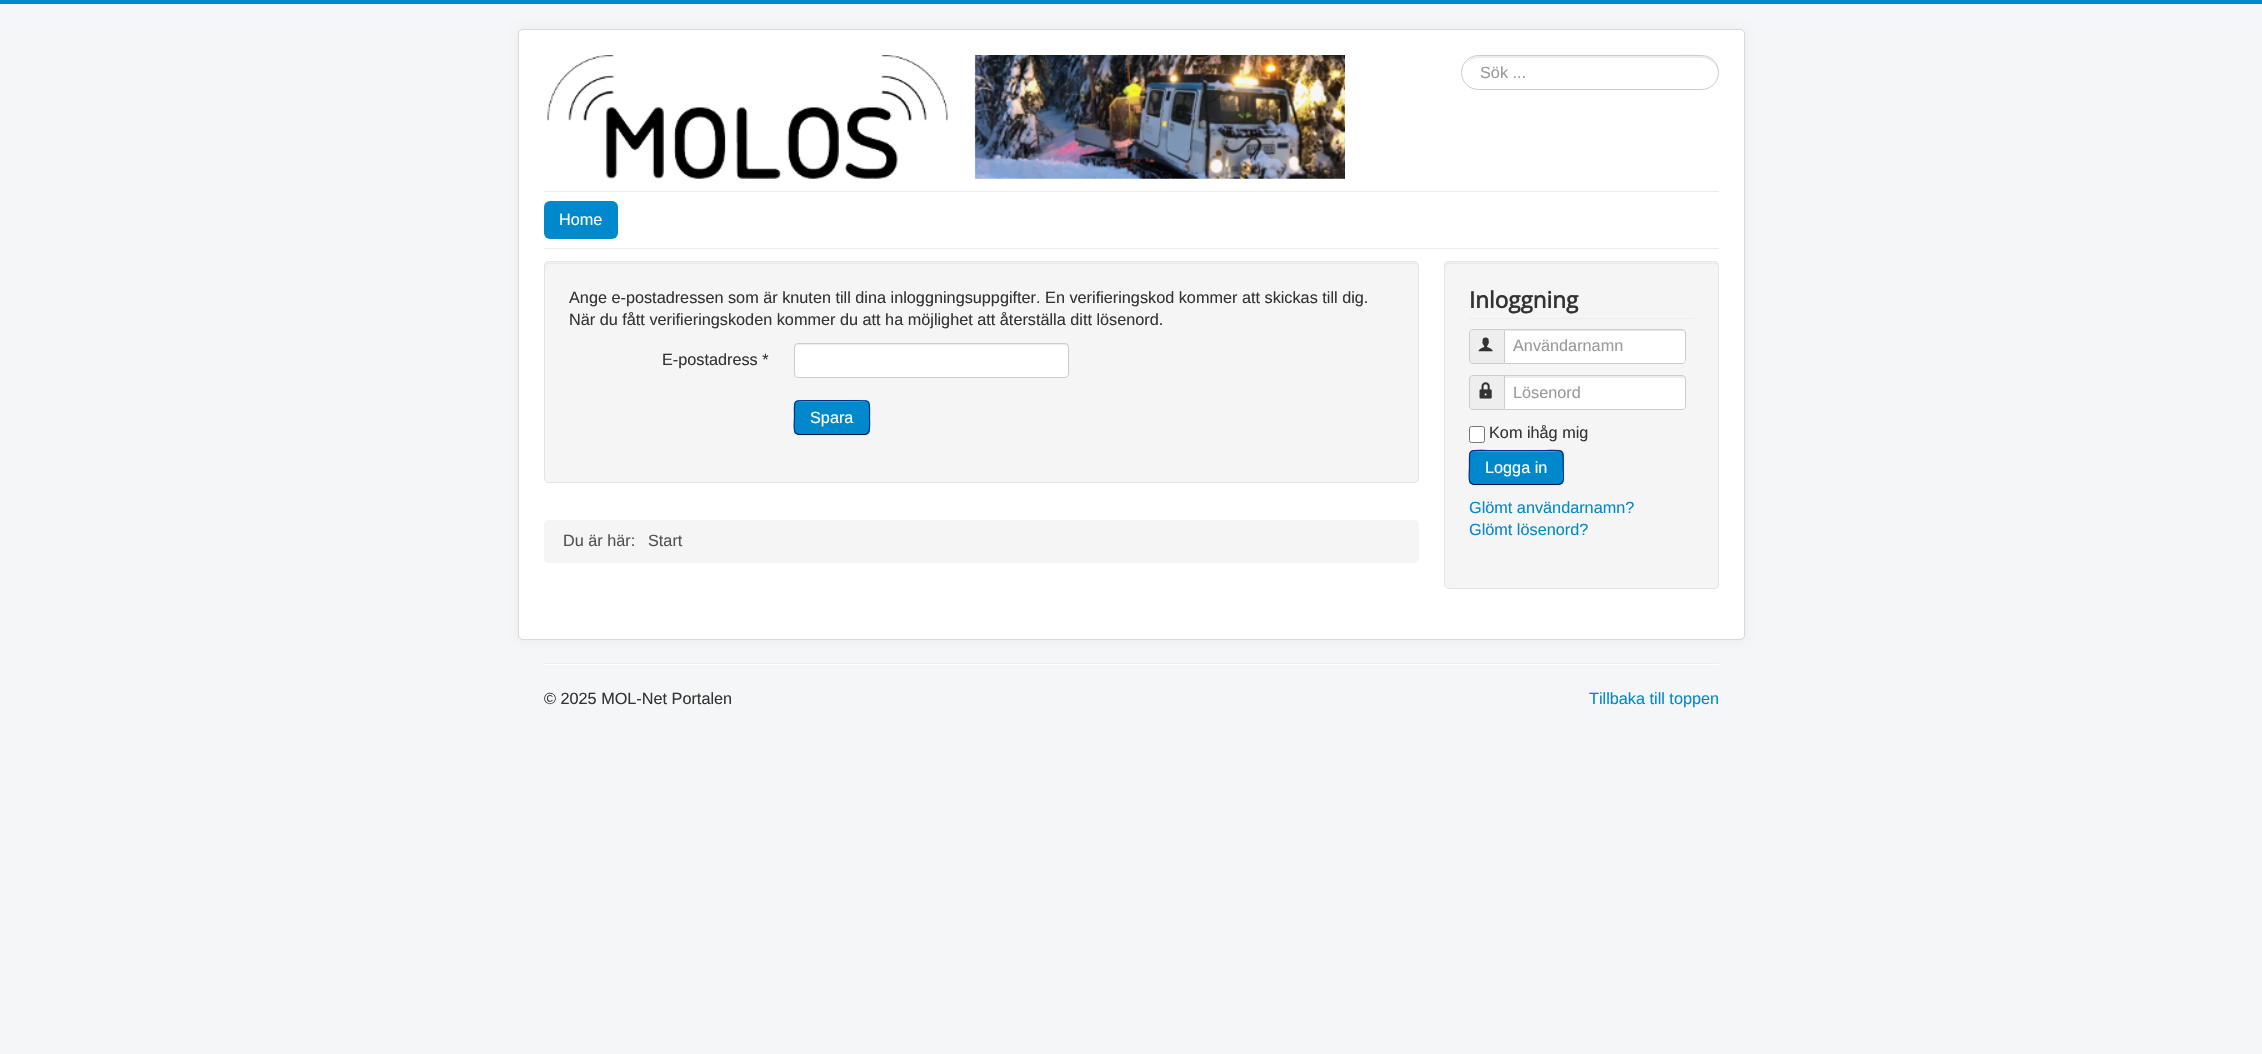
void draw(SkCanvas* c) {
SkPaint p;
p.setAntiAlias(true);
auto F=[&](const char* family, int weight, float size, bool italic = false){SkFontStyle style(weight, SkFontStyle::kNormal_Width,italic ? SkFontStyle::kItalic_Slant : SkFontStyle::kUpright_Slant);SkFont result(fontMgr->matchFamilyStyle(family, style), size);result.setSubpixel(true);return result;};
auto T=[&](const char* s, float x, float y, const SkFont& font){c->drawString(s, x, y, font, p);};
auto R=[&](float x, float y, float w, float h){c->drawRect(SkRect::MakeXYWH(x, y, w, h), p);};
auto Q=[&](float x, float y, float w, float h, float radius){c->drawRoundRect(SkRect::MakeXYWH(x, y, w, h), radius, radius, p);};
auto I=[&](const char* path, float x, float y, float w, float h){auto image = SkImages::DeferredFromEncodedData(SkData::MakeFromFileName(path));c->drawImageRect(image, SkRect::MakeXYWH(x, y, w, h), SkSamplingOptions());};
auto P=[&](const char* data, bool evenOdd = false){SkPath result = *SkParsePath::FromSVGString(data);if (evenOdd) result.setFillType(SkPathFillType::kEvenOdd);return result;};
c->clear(0xfff4f6f7);
p.setColor(0xff0088cc);
R(0,0,2262,4);
p.setColor(0x0d000000);
p.setMaskFilter(SkMaskFilter::MakeBlur(kNormal_SkBlurStyle, 4));
c->drawRoundRect(SkRect::MakeXYWH(518,29,1227,611),5,5,p);
p.setMaskFilter(nullptr);
p.setColor(0xffffffff);
Q(518,29,1227,611,5);
p.setStroke(true);
p.setStrokeWidth(1);
p.setColor(0x26000000);
c->drawRoundRect(SkRect::MakeXYWH(518.5,29.5,1226,610),4.5,4.5,p);
I("1.png",547,55,798,124);
p.setStroke(false);
p.setColor(0xffececec);
c->drawPath(P("M1479 58h222c9 0 17 7 17 15c1-26-43-17-54-17h-184c-7 0-13 4-16 10c3-5 9-8 15-8z"),p);
p.setStroke(true);
p.setColor(0xffcccccc);
c->drawRoundRect(SkRect::MakeXYWH(1461.5,55.5,257,34),17,17,p);
auto f1 = F("Liberation Sans",400,16.25);
p.setStroke(false);
p.setColor(0xff999999);
T("Sök ...",1480,78,f1);
p.setColor(0xffececec);
R(544,191,1175,1);
R(544,248,1175,1);
p.setColor(0xff0088cc);
Q(544,201,74,38,6);
p.setColor(0xffffffff);
T("Home",559,225,f1);
p.setColor(0xfff5f5f5);
Q(544,261,875,222,5);
p.setColor(0xffe9e9e9);
c->drawPath(P("M549 264h865c2 0 4 1 4 4c0-3-1-5-4-5h-865c-3 0-4 2-4 5c0-3 2-4 4-4z"),p);
p.setStroke(true);
p.setColor(0xffe3e3e3);
c->drawRoundRect(SkRect::MakeXYWH(544.5,261.5,874,221),4.5,4.5,p);
p.setStroke(false);
p.setColor(0xff333333);
T("Ange e-postadressen som är knuten till dina inloggningsuppgifter. En verifieringskod kommer att skickas till dig.",569,303,f1);
T("När du fått verifieringskoden kommer du att ha möjlighet att återställa ditt lösenord.",569,325,f1);
T("E-postadress *",662,365,f1);
p.setColor(0xffffffff);
Q(794,343,275,35,4);
p.setColor(0xffececec);
c->drawPath(P("M798 345h267c1 0 3 1 3 3v-2c0-1-1-2-2-2h-268c-2 0-3 1-3 2v2c0-2 1-3 3-3z"),p);
p.setStroke(true);
p.setColor(0xffcccccc);
c->drawRoundRect(SkRect::MakeXYWH(794.5,343.5,274,34),3.5,3.5,p);
p.setStroke(false);
p.setColor(0x0d000000);
p.setMaskFilter(SkMaskFilter::MakeBlur(kNormal_SkBlurStyle, 1));
c->drawRoundRect(SkRect::MakeXYWH(794,401,76,35),5,5,p);
p.setMaskFilter(nullptr);
p.setColor(0xff0088cc);
Q(794,400,76,35,5);
p.setColor(0xff33a0d6);
c->drawPath(P("M799 402h66c2 0 4 2 4 4c0-8-10-5-15-5h-44c-5 0-15-3-15 5c0-2 2-4 4-4z"),p);
p.setStroke(true);
p.setStrokeWidth(1.2);
p.setColor(0xff001641);
c->drawPath(P("M868 433l-2.5 1.5h-67l-3-1.5"),p);
p.setColor(0xff002f8d);
c->drawPath(P("M795.5 433c-2.5-2.5-1-12.5-1-15.5c0-18-3-17 15.5-17h44c18 0 15.5-1 15.5 17c0 3 1 13-1.5 15.5"),p);
p.setStroke(false);
p.setColor(0xffffffff);
T("Spara",810,423,f1);
p.setColor(0xfff5f5f5);
Q(544,520,875,43,5);
p.setColor(0xff515151);
T("Du är här:",563,546,f1);
T("Start",648,546,f1);
p.setColor(0xfff5f5f5);
Q(1444,261,275,328,5);
p.setColor(0xffe9e9e9);
c->drawPath(P("M1449 264h265c2 0 4 1 4 4c0-3-1-5-4-5h-265c-3 0-4 2-4 5c0-3 2-4 4-4z"),p);
p.setStroke(true);
p.setStrokeWidth(1);
p.setColor(0xffe3e3e3);
c->drawRoundRect(SkRect::MakeXYWH(1444.5,261.5,274,327),4.5,4.5,p);
p.setStroke(false);
p.setColor(0xffeeeeee);
R(1469,318,225,1);
auto f2 = F("Open Sans",700,22.5);
p.setColor(0xff333333);
T("Inloggning",1469,308,f2);
p.setColor(0xffeeeeee);
c->drawPath(P("M1473 329.5h31.5v34h-31.5c-2 0-3.5-1.5-3.5-3.5v-27c0-2 1.5-3.5 3.5-3.5z"),p);
p.setStroke(true);
p.setColor(0xffcccccc);
c->drawPath(P("M1473 329.5h31.5v34h-31.5c-2 0-3.5-1.5-3.5-3.5v-27c0-2 1.5-3.5 3.5-3.5z"),p);
I("2.png",1478,337,15,15);
p.setStroke(false);
p.setColor(0xffffffff);
c->drawPath(P("M1504 329h178c2 0 4 2 4 4v27c0 2-2 4-4 4h-178z"),p);
p.setColor(0xffececec);
c->drawPath(P("M1505 331h178l1 1l1 2c0-2 0-4-2-4h-178z"),p);
p.setStroke(true);
p.setColor(0xffcccccc);
c->drawPath(P("M1504.5 329.5h177.5c2 0 3.5 1.5 3.5 3.5v27c0 2-1.5 3.5-3.5 3.5h-177.5z"),p);
p.setStroke(false);
p.setColor(0xff999999);
T("Användarnamn",1513,351,f1);
p.setColor(0xffeeeeee);
c->drawPath(P("M1473 375.5h31.5v34h-31.5c-2 0-3.5-1.5-3.5-3.5v-27c0-2 1.5-3.5 3.5-3.5z"),p);
p.setStroke(true);
p.setColor(0xffcccccc);
c->drawPath(P("M1473 375.5h31.5v34h-31.5c-2 0-3.5-1.5-3.5-3.5v-27c0-2 1.5-3.5 3.5-3.5z"),p);
I("3.png",1479,382,13,17);
p.setStroke(false);
p.setColor(0xffffffff);
c->drawPath(P("M1504 375h178c2 0 4 2 4 4v27c0 2-2 4-4 4h-178z"),p);
p.setColor(0xffececec);
c->drawPath(P("M1505 378h177c2 0 3 1 3 2c0-2 0-4-2-4h-178z"),p);
p.setStroke(true);
p.setColor(0xffcccccc);
c->drawPath(P("M1504.5 375.5h177.5c2 0 3.5 1.5 3.5 3.5v27c0 2-1.5 3.5-3.5 3.5h-177.5z"),p);
p.setStroke(false);
p.setColor(0xff999999);
T("Lösenord",1513,398,f1);
p.setColor(0xffffffff);
c->drawRoundRect(SkRect::MakeXYWH(1469.5,426.5,15,16),2,2,p);
p.setStroke(true);
p.setColor(0xff767676);
c->drawRoundRect(SkRect::MakeXYWH(1469.5,426.5,15,16),2,2,p);
p.setStroke(false);
p.setColor(0xff333333);
T("Kom ihåg mig",1489,438,f1);
p.setColor(0x0d000000);
p.setMaskFilter(SkMaskFilter::MakeBlur(kNormal_SkBlurStyle, 1));
c->drawRoundRect(SkRect::MakeXYWH(1469,451,95,35),5,5,p);
p.setMaskFilter(nullptr);
p.setColor(0xff0088cc);
Q(1469,450,95,35,5);
p.setColor(0xff33a0d6);
c->drawPath(P("M1474 452h85c5 0 3 10 3 12v19c2-2 1-12 1-15c0-20 3-17-18-17h-57c-4 0-18-4-18 5c0-2 2-4 4-4z"),p);
p.setStroke(true);
p.setStrokeWidth(1.2);
p.setColor(0xff001641);
c->drawPath(P("M1562 483l-3 1.5h-85.5l-3-1.5"),p);
p.setColor(0xff002f8d);
c->drawPath(P("M1470.5 483c-2.5-2.5-1-12.5-1-15.5c0-19.5-2.5-17 18.5-17h56.5c21 0 18.5-2.5 18.5 17c0 3 1.5 13-1 15.5"),p);
p.setStroke(false);
p.setColor(0xffffffff);
T("Logga in",1485,473,f1);
p.setColor(0xff0088cc);
T("Glömt användarnamn?",1469,513,f1);
T("Glömt lösenord?",1469,535,f1);
p.setColor(0xffeeeeee);
R(544,663,1175,1);
p.setColor(0xffffffff);
R(544,664,1175,1);
p.setColor(0xff333333);
T("© 2025 MOL-Net Portalen",544,704,f1);
p.setColor(0xff0088cc);
T("Tillbaka till toppen",1589,704,f1);
}
